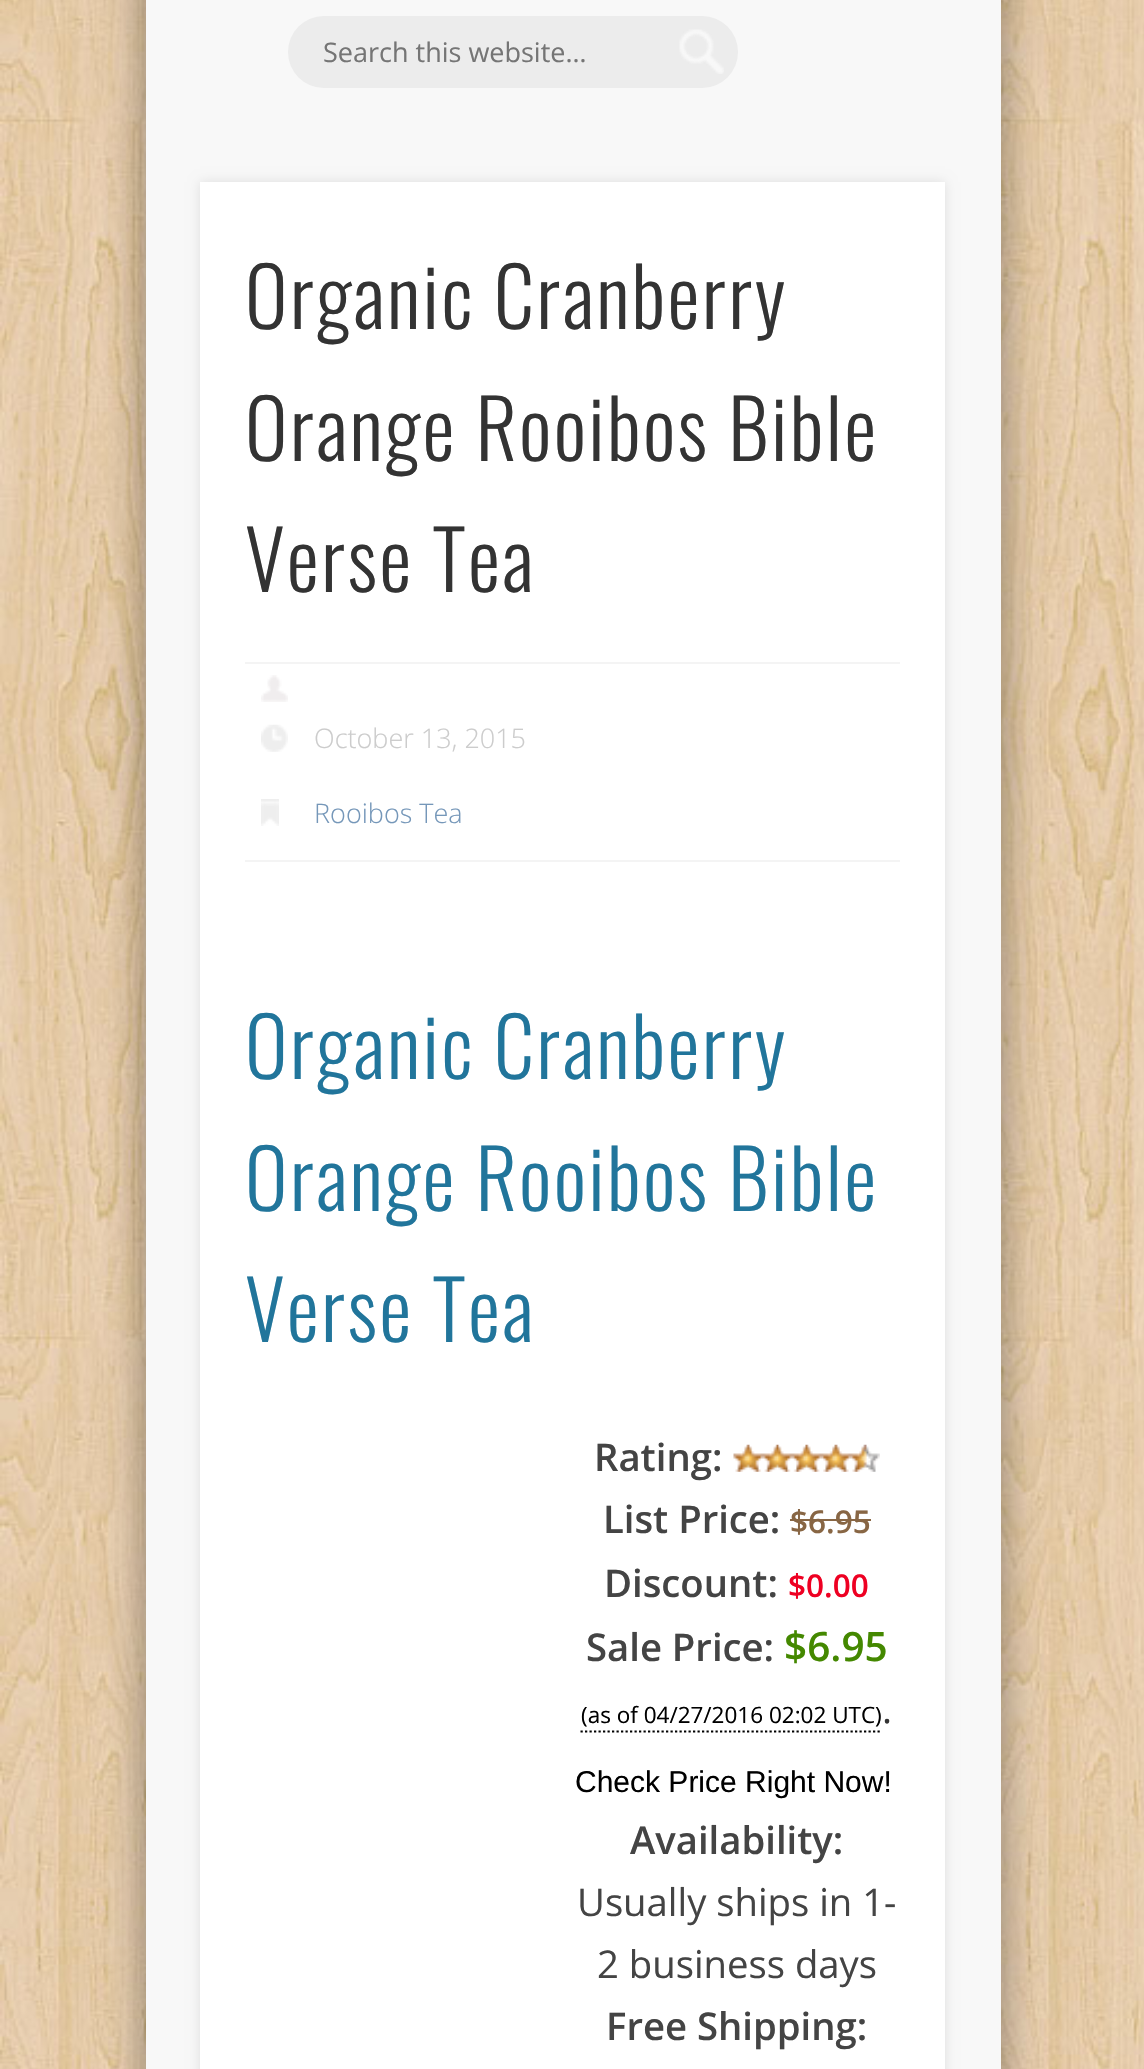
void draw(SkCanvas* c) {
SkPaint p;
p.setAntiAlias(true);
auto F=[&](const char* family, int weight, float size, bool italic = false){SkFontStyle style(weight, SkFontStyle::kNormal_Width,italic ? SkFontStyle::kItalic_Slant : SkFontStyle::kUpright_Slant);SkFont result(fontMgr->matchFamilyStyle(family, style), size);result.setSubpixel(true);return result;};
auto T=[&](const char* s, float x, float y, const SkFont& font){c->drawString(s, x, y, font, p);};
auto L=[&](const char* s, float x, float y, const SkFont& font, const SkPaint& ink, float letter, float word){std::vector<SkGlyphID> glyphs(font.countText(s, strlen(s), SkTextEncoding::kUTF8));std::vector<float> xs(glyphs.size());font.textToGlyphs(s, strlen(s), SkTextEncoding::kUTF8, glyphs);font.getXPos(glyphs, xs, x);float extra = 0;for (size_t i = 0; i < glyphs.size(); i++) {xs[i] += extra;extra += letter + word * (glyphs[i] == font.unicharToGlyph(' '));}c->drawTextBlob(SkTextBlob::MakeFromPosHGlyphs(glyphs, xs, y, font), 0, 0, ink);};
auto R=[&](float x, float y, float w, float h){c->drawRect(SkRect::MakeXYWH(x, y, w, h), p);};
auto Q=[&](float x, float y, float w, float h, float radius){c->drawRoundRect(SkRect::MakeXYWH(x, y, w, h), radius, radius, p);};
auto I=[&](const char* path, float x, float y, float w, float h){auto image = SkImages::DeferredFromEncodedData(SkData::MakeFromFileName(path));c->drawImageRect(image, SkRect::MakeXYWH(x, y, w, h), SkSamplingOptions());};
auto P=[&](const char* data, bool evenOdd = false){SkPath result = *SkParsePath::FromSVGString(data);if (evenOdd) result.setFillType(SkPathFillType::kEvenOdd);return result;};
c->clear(0xffffffff);
I("1.png",0,0,1144,2069);
p.setColor(0x66000000);
p.setMaskFilter(SkMaskFilter::MakeBlur(kNormal_SkBlurStyle, 20));
c->drawRect(SkRect::MakeXYWH(146,-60,855,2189),p);
p.setMaskFilter(nullptr);
p.setColor(0xfff8f8f8);
R(146,0,855,2069);
p.setColor(0xffececec);
Q(288,16,450,72,36);
I("2.png",679,29,45,45);
auto f1 = F("Open Sans",400,27);
p.setColor(0xff757575);
T("Search this website…",323,62,f1);
p.setColor(0x1a000000);
p.setMaskFilter(SkMaskFilter::MakeBlur(kNormal_SkBlurStyle, 5.5));
c->drawRect(SkRect::MakeXYWH(200,182,745,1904),p);
p.setMaskFilter(nullptr);
p.setColor(0xffffffff);
R(200,182,745,1887);
auto f2 = F("Oswald",300,81);
p.setColor(0xff333333);
L("Organic Cranberry",245,329,f2,p,2.25,0);
L("Orange Rooibos Bible",245,461,f2,p,2.25,0);
L("Verse Tea",245,592,f2,p,2.25,0);
p.setColor(0xfff4f4f4);
R(245,662,655,2);
R(245,860,655,2);
I("3.png",261,675,27,27);
I("4.png",261,724,27,28);
auto f3 = F("Open Sans",300,27);
p.setColor(0xffcccccc);
T("October 13, 2015",314,748,f3);
I("5.png",261,799,18,27);
p.setColor(0xff7597b9);
T("Rooibos Tea",314,823,f3);
p.setColor(0xff21759b);
L("Organic Cranberry",245,1079,f2,p,2.25,0);
L("Orange Rooibos Bible",245,1211,f2,p,2.25,0);
L("Verse Tea",245,1342,f2,p,2.25,0);
auto f4 = F("Open Sans",600,38.25);
p.setColor(0xff444444);
T("Rating:",594,1471,f4);
I("6.png",733,1444,147,28);
T("List Price:",603,1533,f4);
auto f5 = F("Open Sans",600,31.5);
p.setColor(0xff886644);
T("$6.95",790,1533,f5);
R(790,1519,81,2);
p.setColor(0xff444444);
T("Discount:",604,1597,f4);
p.setColor(0xffee0022);
T("$0.00",788,1597,f5);
p.setColor(0xff444444);
T("Sale Price:",586,1661,f4);
auto f6 = F("Open Sans",600,40.5);
p.setColor(0xff448800);
T("$6.95",784,1661,f6);
auto f7 = F("Open Sans",400,22.5);
p.setColor(0xff000000);
T("(as of 04/27/2016 02:02 UTC)",581,1723,f7);
p.setStroke(true);
p.setStrokeWidth(2.2);
p.setPathEffect(SkDashPathEffect::Make({{2.25f,2.25f}}, 0));
c->drawPath(P("M580.5 1731.5h301.5"),p);
p.setPathEffect(nullptr);
auto f8 = F("Open Sans",400,38.25);
p.setStroke(false);
p.setColor(0xff333333);
T(".",882,1723,f8);
auto f9 = F("Liberation Sans",400,30);
p.setColor(0xff000000);
T("Check Price Right Now!",575,1792,f9);
p.setColor(0xff444444);
T("Availability:",630,1854,f4);
T("Usually ships in 1-",577,1916,f8);
T("2 business days",597,1978,f8);
T("Free Shipping:",606,2040,f4);
}
